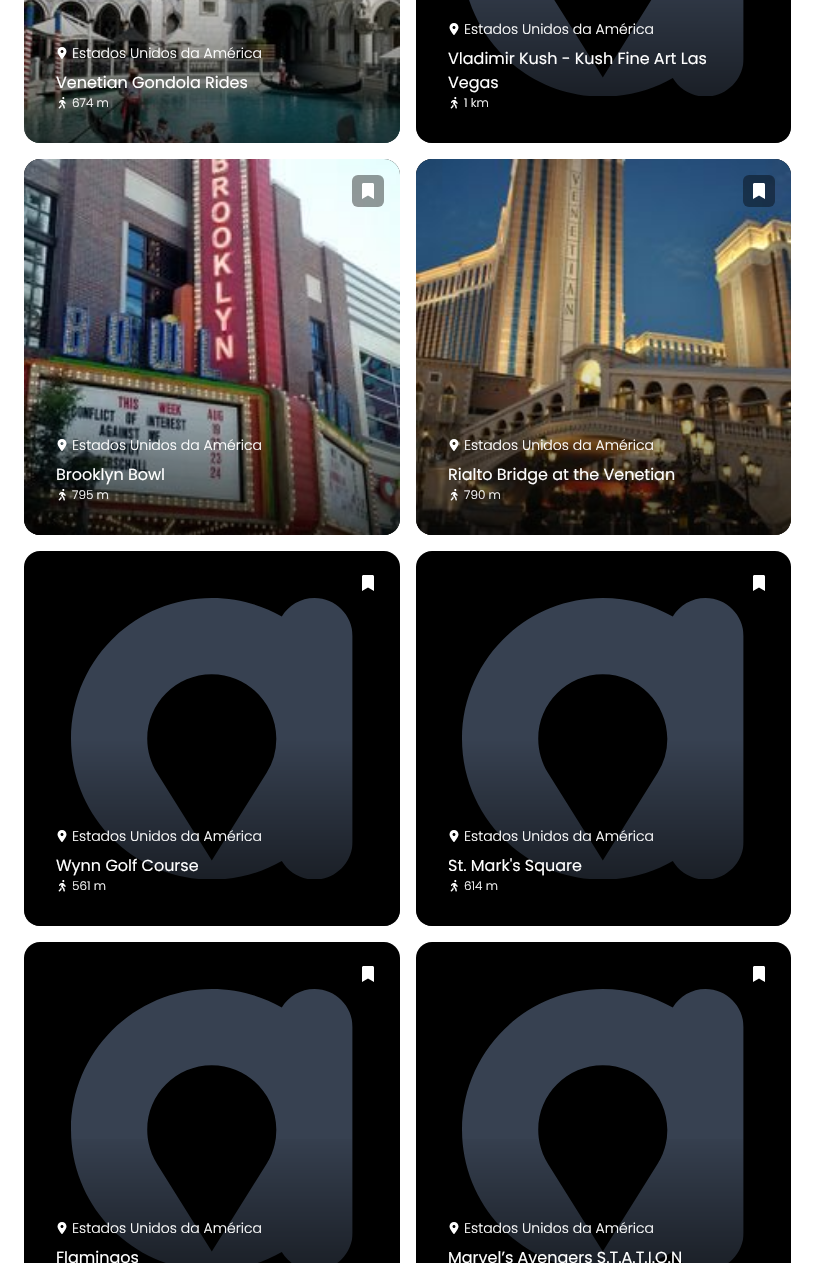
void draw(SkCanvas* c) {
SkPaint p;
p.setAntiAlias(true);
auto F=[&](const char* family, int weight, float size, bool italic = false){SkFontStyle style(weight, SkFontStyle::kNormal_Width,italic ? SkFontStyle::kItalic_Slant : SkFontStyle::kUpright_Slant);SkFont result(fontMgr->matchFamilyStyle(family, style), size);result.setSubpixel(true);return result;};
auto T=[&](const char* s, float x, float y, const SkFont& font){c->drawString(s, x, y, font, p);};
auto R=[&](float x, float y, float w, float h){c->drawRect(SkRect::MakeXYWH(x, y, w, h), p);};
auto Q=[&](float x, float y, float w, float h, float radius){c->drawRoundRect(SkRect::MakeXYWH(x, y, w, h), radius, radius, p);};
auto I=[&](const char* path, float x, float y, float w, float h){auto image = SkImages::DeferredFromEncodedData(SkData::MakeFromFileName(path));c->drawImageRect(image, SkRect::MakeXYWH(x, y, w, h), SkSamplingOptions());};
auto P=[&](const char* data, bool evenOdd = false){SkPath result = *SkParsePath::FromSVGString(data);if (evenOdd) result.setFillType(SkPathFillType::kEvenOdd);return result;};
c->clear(0xffffffff);
p.setColor(0xff000000);
Q(24,-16,376,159,16);
I("1.png",24,0,376,143);
{
const SkColor colors[] = {0xb3000000,0x00000000};
const float stops[] = {0,1};
const SkPoint ends[] = {{212,143}, {212,-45}};
p.setShader(SkGradientShader::MakeLinear(ends, colors, stops, 2, SkTileMode::kClamp));
p.setAlpha(255);
}
c->drawPath(P("M24-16h376v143c0 9-7 16-16 16h-344c-9 0-16-7-16-16z"),p);
I("2.png",57,47,10,12);
auto f1 = F("Poppins",300,14);
p.setShader(nullptr);
p.setColor(0xffffffff);
T("Estados Unidos da América",72,58,f1);
auto f2 = F("Poppins",400,16);
T("Venetian Gondola Rides",56,88,f2);
I("3.png",58,97,8,12);
auto f3 = F("Poppins",300,12);
T("674 m",72,107,f3);
p.setColor(0xff000000);
Q(416,-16,375,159,16);
I("4.png",469,0,275,96);
{
const SkColor colors[] = {0xb3000000,0x00000000};
const float stops[] = {0,1};
const SkPoint ends[] = {{604,143}, {604,-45}};
p.setShader(SkGradientShader::MakeLinear(ends, colors, stops, 2, SkTileMode::kClamp));
p.setAlpha(255);
}
c->drawPath(P("M416-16h375v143c0 9-7 16-16 16h-343c-9 0-16-7-16-16z"),p);
I("5.png",449,23,10,12);
p.setShader(nullptr);
p.setColor(0xffffffff);
T("Estados Unidos da América",464,34,f1);
T("Vladimir Kush - Kush Fine Art Las",448,64,f2);
T("Vegas",448,88,f2);
I("6.png",450,97,8,12);
T("1 km",464,107,f3);
p.setColor(0xff000000);
Q(24,159,376,376,16);
I("7.png",24,159,376,376);
p.setColor(0x66000000);
Q(352,175,32,32,6);
I("8.png",362,183,12,16);
{
const SkColor colors[] = {0xb3000000,0x00000000};
const float stops[] = {0,1};
const SkPoint ends[] = {{212,535}, {212,347}};
p.setShader(SkGradientShader::MakeLinear(ends, colors, stops, 2, SkTileMode::kClamp));
p.setAlpha(255);
}
c->drawPath(P("M24 347h376v172c0 9-7 16-16 16h-344c-9 0-16-7-16-16z"),p);
I("9.png",57,439,10,12);
p.setShader(nullptr);
p.setColor(0xffffffff);
T("Estados Unidos da América",72,450,f1);
T("Brooklyn Bowl",56,480,f2);
I("10.png",58,489,8,12);
T("795 m",72,499,f3);
p.setColor(0xff000000);
Q(416,159,375,376,16);
I("11.png",416,159,375,376);
p.setColor(0x66000000);
Q(743,175,32,32,6);
I("12.png",753,183,12,16);
{
const SkColor colors[] = {0xb3000000,0x00000000};
const float stops[] = {0,1};
const SkPoint ends[] = {{604,535}, {604,347}};
p.setShader(SkGradientShader::MakeLinear(ends, colors, stops, 2, SkTileMode::kClamp));
p.setAlpha(255);
}
c->drawPath(P("M416 347h375v172c0 9-7 16-16 16h-343c-9 0-16-7-16-16z"),p);
I("13.png",449,439,10,12);
p.setShader(nullptr);
p.setColor(0xffffffff);
T("Estados Unidos da América",464,450,f1);
T("Rialto Bridge at the Venetian",448,480,f2);
I("14.png",450,489,8,12);
T("790 m",464,499,f3);
p.setColor(0xff000000);
Q(24,551,376,375,16);
I("15.png",71,598,282,281);
I("16.png",362,575,12,16);
{
const SkColor colors[] = {0xb3000000,0x00000000};
const float stops[] = {0,1};
const SkPoint ends[] = {{212,926}, {212,738}};
p.setShader(SkGradientShader::MakeLinear(ends, colors, stops, 2, SkTileMode::kClamp));
p.setAlpha(255);
}
c->drawPath(P("M24 738h376v172c0 9-7 16-16 16h-344c-9 0-16-7-16-16z"),p);
I("17.png",57,830,10,12);
p.setShader(nullptr);
p.setColor(0xffffffff);
T("Estados Unidos da América",72,841,f1);
T("Wynn Golf Course",56,871,f2);
I("18.png",58,880,8,12);
T("561 m",72,890,f3);
p.setColor(0xff000000);
Q(416,551,375,375,16);
I("19.png",462,598,282,281);
I("20.png",753,575,12,16);
{
const SkColor colors[] = {0xb3000000,0x00000000};
const float stops[] = {0,1};
const SkPoint ends[] = {{604,926}, {604,738}};
p.setShader(SkGradientShader::MakeLinear(ends, colors, stops, 2, SkTileMode::kClamp));
p.setAlpha(255);
}
c->drawPath(P("M416 738h375v172c0 9-7 16-16 16h-343c-9 0-16-7-16-16z"),p);
I("17.png",449,830,10,12);
p.setShader(nullptr);
p.setColor(0xffffffff);
T("Estados Unidos da América",464,841,f1);
T("St. Mark's Square",448,871,f2);
I("18.png",450,880,8,12);
T("614 m",464,890,f3);
p.setColor(0xff000000);
Q(24,942,376,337,16);
I("21.png",71,989,282,274);
I("16.png",362,966,12,16);
{
const SkColor colors[] = {0xb3000000,0x00000000};
const float stops[] = {0,1};
const SkPoint ends[] = {{212,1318}, {212,1130}};
p.setShader(SkGradientShader::MakeLinear(ends, colors, stops, 2, SkTileMode::kClamp));
p.setAlpha(255);
}
R(72,1139,281,124);
I("5.png",57,1222,10,12);
p.setShader(nullptr);
p.setColor(0xffffffff);
T("Estados Unidos da América",72,1233,f1);
T("Flamingos",56,1263,f2);
p.setColor(0xff000000);
Q(416,942,375,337,16);
I("22.png",462,989,282,274);
I("20.png",753,966,12,16);
{
const SkColor colors[] = {0xb3000000,0x00000000};
const float stops[] = {0,1};
const SkPoint ends[] = {{604,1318}, {604,1130}};
p.setShader(SkGradientShader::MakeLinear(ends, colors, stops, 2, SkTileMode::kClamp));
p.setAlpha(255);
}
R(463,1139,281,124);
I("5.png",449,1222,10,12);
p.setShader(nullptr);
p.setColor(0xffffffff);
T("Estados Unidos da América",464,1233,f1);
T("Marvel’s Avengers S.T.A.T.I.O.N",448,1263,f2);
}
